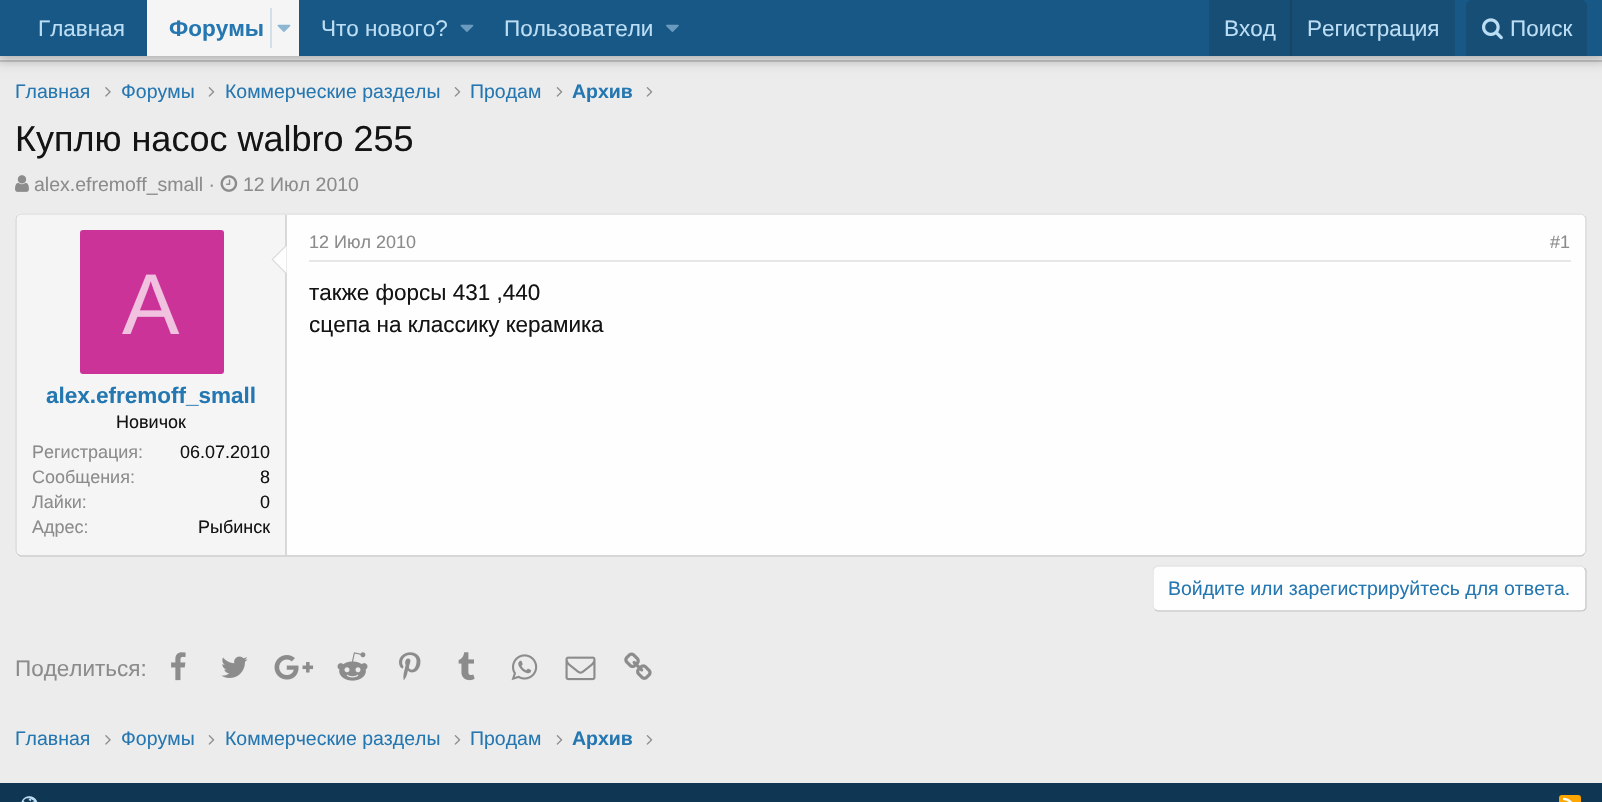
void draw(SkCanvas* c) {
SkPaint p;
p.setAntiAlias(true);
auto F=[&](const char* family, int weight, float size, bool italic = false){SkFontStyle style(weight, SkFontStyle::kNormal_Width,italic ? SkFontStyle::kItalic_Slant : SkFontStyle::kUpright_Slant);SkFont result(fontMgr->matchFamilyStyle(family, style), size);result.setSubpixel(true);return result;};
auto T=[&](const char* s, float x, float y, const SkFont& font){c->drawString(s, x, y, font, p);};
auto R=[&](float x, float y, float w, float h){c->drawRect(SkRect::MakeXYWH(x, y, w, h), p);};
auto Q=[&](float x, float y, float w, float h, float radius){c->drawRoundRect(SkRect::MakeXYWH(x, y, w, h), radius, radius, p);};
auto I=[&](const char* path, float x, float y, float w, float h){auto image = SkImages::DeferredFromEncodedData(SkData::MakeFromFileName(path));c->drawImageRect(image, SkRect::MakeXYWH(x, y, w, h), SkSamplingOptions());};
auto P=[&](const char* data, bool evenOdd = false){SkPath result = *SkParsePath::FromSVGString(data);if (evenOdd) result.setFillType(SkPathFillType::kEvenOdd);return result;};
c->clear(0xffececec);
p.setColor(0xfff5f5f5);
R(0,56,1602,4);
p.setColor(0xffcbcbcb);
R(0,60,1602,2);
p.setColor(0x4d000000);
p.setMaskFilter(SkMaskFilter::MakeBlur(kNormal_SkBlurStyle, 6));
c->drawRect(SkRect::MakeXYWH(-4,-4,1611,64),p);
p.setMaskFilter(nullptr);
p.setColor(0xff185886);
R(0,0,1602,56);
auto f1 = F("Liberation Sans",400,22.5);
p.setColor(0xffbcdef5);
T("Главная",38,36,f1);
p.setColor(0xfff5f5f5);
R(147,0,152,56);
auto f2 = F("Liberation Sans",700,22.5);
p.setColor(0xff2577b1);
T("Форумы",169,36,f2);
p.setColor(0xffd1dfe9);
R(270,8,2,40);
I("1.png",277,24,14,8);
p.setColor(0xffbcdef5);
T("Что нового?",321,36,f1);
I("2.png",460,24,14,8);
T("Пользователи",504,36,f1);
I("3.png",666,24,13,8);
p.setColor(0xff174e75);
R(1209,0,246,56);
p.setColor(0xffbcdef5);
T("Вход",1224,36,f1);
p.setColor(0xff174566);
R(1290,0,2,56);
p.setColor(0xffbcdef5);
T("Регистрация",1307,36,f1);
p.setColor(0xff174e75);
c->drawPath(P("M1472 0h109c3.5 0 6 2.5 6 6v50h-121v-50c0-3.5 2.5-6 6-6z"),p);
I("4.png",1482,18,21,22);
p.setColor(0xffbcdef5);
T("Поиск",1510,36,f1);
auto f3 = F("Liberation Sans",400,19.5);
p.setColor(0xff2577b1);
T("Главная",15,98,f3);
I("5.png",105,87,6,10);
T("Форумы",121,98,f3);
I("6.png",208,87,7,10);
T("Коммерческие разделы",225,98,f3);
I("6.png",454,87,7,10);
T("Продам",470,98,f3);
I("6.png",556,87,7,10);
auto f4 = F("Liberation Sans",700,19.5);
T("Архив",572,98,f4);
I("6.png",646,87,7,10);
auto f5 = F("Liberation Sans",400,36);
p.setColor(0xff141414);
T("Куплю насос walbro 255",15,151,f5);
I("7.png",15,175,14,17);
p.setColor(0xff8c8c8c);
T("alex.efremoff_small ·",34,191,f3);
I("8.png",220,175,18,17);
T("12 Июл 2010",243,191,f3);
p.setColor(0xfffefefe);
Q(15,213,1572,344,6);
p.setStroke(true);
p.setStrokeWidth(1.5);
p.setColor(0xffdfdfdf);
c->drawPath(P("M17.5 215.5c1-1 2-1.5 3.5-1.5h1560c1.5 0 2.5 .5 3.5 1.5"),p);
p.setColor(0xffd8d8d8);
c->drawPath(P("M1584.5 215.5c1 1 1.5 2 1.5 3.5v331.5c0 1.5-.5 2.5-1.5 3.5"),p);
p.setColor(0xffcbcbcb);
c->drawPath(P("M1584.5 554c-1 1-2 2-3.5 2h-1560c-1.5 0-2.5-1-3.5-2"),p);
p.setColor(0xffd8d8d8);
c->drawPath(P("M17.5 554c-1-1-1.5-2-1.5-3.5v-331.5c0-1.5 .5-2.5 1.5-3.5"),p);
p.setStroke(false);
p.setColor(0xfff5f5f5);
c->drawPath(P("M22 215h265v340h-265c-3 0-5-2-5-5v-330c0-3 2-5 5-5z"),p);
p.setColor(0xffd8d8d8);
R(285,215,2,340);
c->drawPath(P("M286.5 244.5v30l-15-15z"),p);
p.setColor(0xfffefefe);
c->drawPath(P("M286.5 246v27l-13.5-13.5z"),p);
p.setColor(0xffcc3399);
Q(80,230,144,144,3);
auto f6 = F("Liberation Sans",400,86);
p.setColor(0xfff0c2e0);
T("A",122,334,f6);
p.setColor(0xff2577b1);
T("alex.efremoff_small",46,403,f2);
auto f7 = F("Liberation Sans",400,18);
p.setColor(0xff141414);
T("Новичок",116,428,f7);
p.setColor(0xff8c8c8c);
T("Регистрация:",32,458,f7);
p.setColor(0xff141414);
T("06.07.2010",180,458,f7);
p.setColor(0xff8c8c8c);
T("Сообщения:",32,483,f7);
p.setColor(0xff141414);
T("8",260,483,f7);
p.setColor(0xff8c8c8c);
T("Лайки:",32,508,f7);
p.setColor(0xff141414);
T("0",260,508,f7);
p.setColor(0xff8c8c8c);
T("Адрес:",32,533,f7);
p.setColor(0xff141414);
T("Рыбинск",198,533,f7);
p.setColor(0xffe7e7e7);
R(309,260,1262,2);
p.setColor(0xff8c8c8c);
T("12 Июл 2010",309,248,f7);
T("#1",1550,248,f7);
p.setColor(0xff141414);
T("также форсы 431 ,440",309,300,f1);
T("сцепа на классику керамика",309,332,f1);
p.setColor(0xfffefefe);
Q(1152,566,435,46,6);
p.setStroke(true);
p.setColor(0xffcbcbcb);
c->drawPath(P("M1584.5 568l1.5 2.5v37c-.5 2-2.5 3.5-5 3.5h-423c-1.5 0-2.5-.5-3.5-1.5"),p);
p.setColor(0xffe5e5e5);
c->drawPath(P("M1154.5 609.5l-1.5-2.5v-37c.5-2 2.5-3.5 5-4h423c1.5 .5 2.5 1 3.5 2"),p);
p.setStroke(false);
p.setColor(0xff2577b1);
T("Войдите или зарегистрируйтесь для ответа.",1168,595,f3);
p.setColor(0xff8c8c8c);
T("Поделиться:",15,676,f1);
I("9.png",171,652,15,29);
I("10.png",221,656,27,22);
I("11.png",274,655,40,25);
I("12.png",337,652,31,29);
I("13.png",399,652,22,28);
I("14.png",458,652,17,29);
I("15.png",511,654,27,27);
I("16.png",565,656,31,25);
I("17.png",624,652,28,28);
p.setColor(0xff2577b1);
T("Главная",15,745,f3);
I("5.png",105,735,6,10);
T("Форумы",121,745,f3);
I("6.png",208,735,7,10);
T("Коммерческие разделы",225,745,f3);
I("6.png",454,735,7,10);
T("Продам",470,745,f3);
I("6.png",556,735,7,10);
T("Архив",572,745,f4);
I("6.png",646,735,7,10);
p.setColor(0xff0f3652);
R(0,783,1602,19);
I("18.png",21,796,17,6);
p.setColor(0xffffa500);
Q(1559,795,22,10,3);
I("19.png",1563,797,10,5);
}
